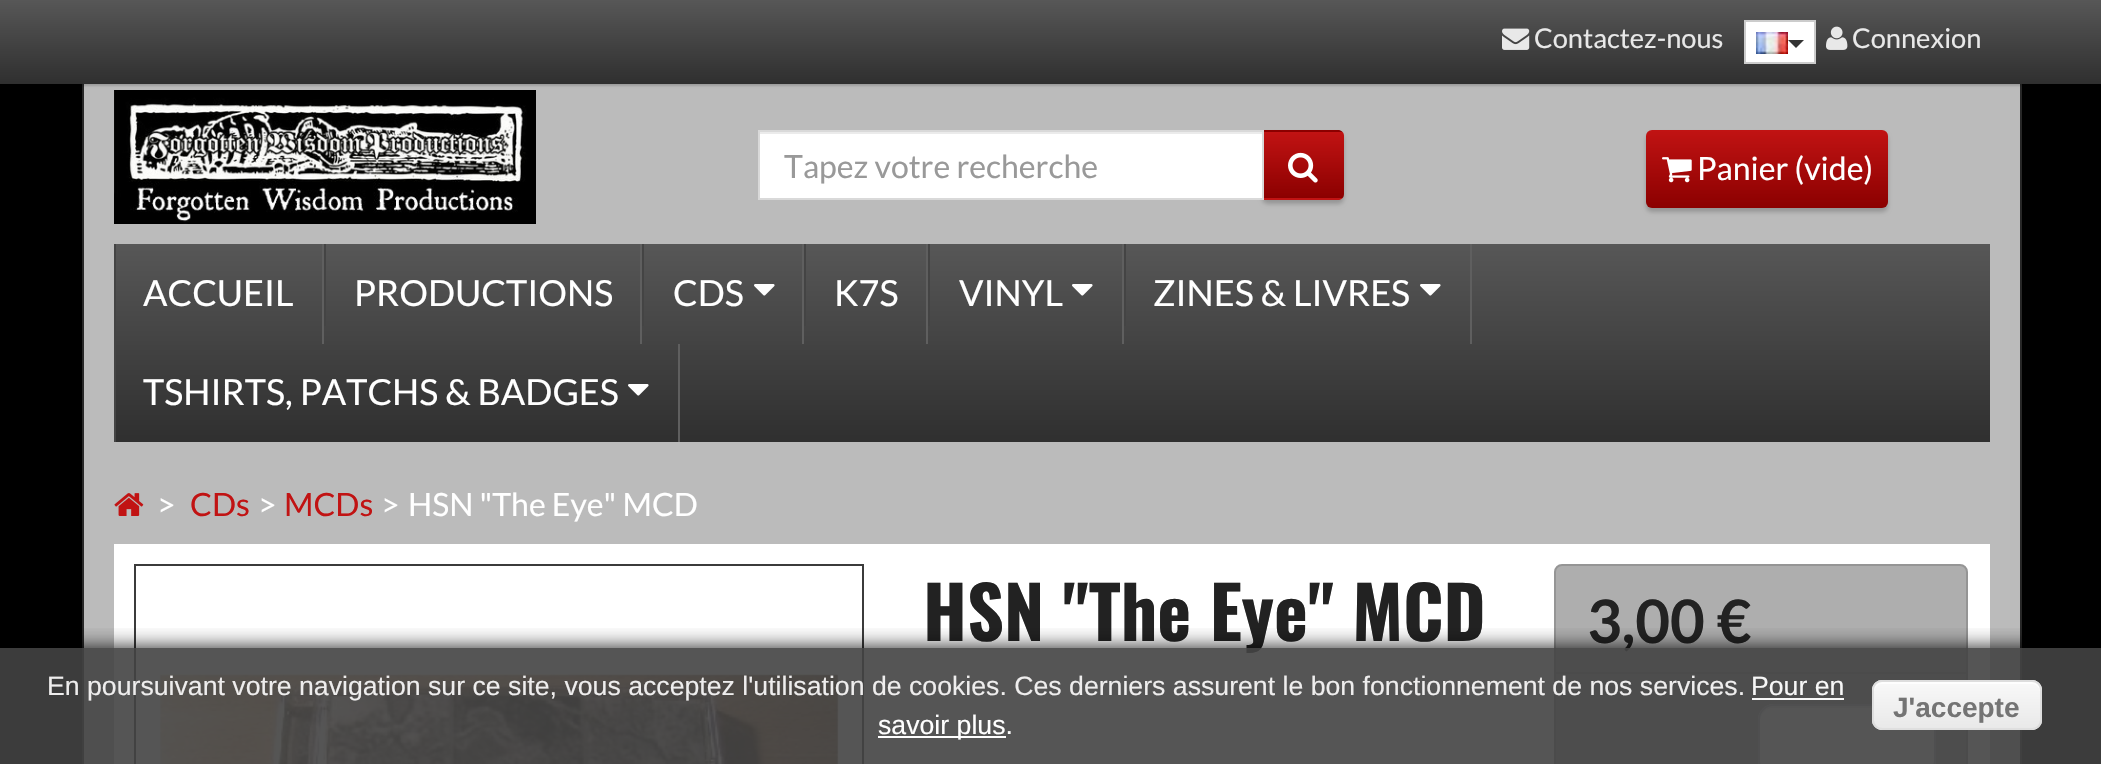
void draw(SkCanvas* c) {
SkPaint p;
p.setAntiAlias(true);
auto F=[&](const char* family, int weight, float size, bool italic = false){SkFontStyle style(weight, SkFontStyle::kNormal_Width,italic ? SkFontStyle::kItalic_Slant : SkFontStyle::kUpright_Slant);SkFont result(fontMgr->matchFamilyStyle(family, style), size);result.setSubpixel(true);return result;};
auto T=[&](const char* s, float x, float y, const SkFont& font){c->drawString(s, x, y, font, p);};
auto R=[&](float x, float y, float w, float h){c->drawRect(SkRect::MakeXYWH(x, y, w, h), p);};
auto Q=[&](float x, float y, float w, float h, float radius){c->drawRoundRect(SkRect::MakeXYWH(x, y, w, h), radius, radius, p);};
auto I=[&](const char* path, float x, float y, float w, float h){auto image = SkImages::DeferredFromEncodedData(SkData::MakeFromFileName(path));c->drawImageRect(image, SkRect::MakeXYWH(x, y, w, h), SkSamplingOptions());};
auto P=[&](const char* data, bool evenOdd = false){SkPath result = *SkParsePath::FromSVGString(data);if (evenOdd) result.setFillType(SkPathFillType::kEvenOdd);return result;};
c->clear(0xff000000);
p.setColor(0xffbbbbbb);
R(84,84,1936,680);
p.setColor(0xff272727);
R(2020,84,2,680);
R(82,84,2,680);
p.setColor(0x29000000);
p.setMaskFilter(SkMaskFilter::MakeBlur(kNormal_SkBlurStyle, 1));
c->drawRect(SkRect::MakeXYWH(0,2,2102,84),p);
p.setMaskFilter(nullptr);
{
const SkColor colors[] = {0xff575757,0xff2f2f2f};
const float stops[] = {0,1};
const SkPoint ends[] = {{1051,0}, {1051,84}};
p.setShader(SkGradientShader::MakeLinear(ends, colors, stops, 2, SkTileMode::kClamp));
p.setAlpha(255);
}
R(0,0,2101,84);
I("1.png",1502,28,28,22);
auto f1 = F("Lato",400,27.25);
p.setShader(nullptr);
p.setColor(0xffe8e8e8);
T("Contactez-nous",1534,48,f1);
p.setColor(0xffffffff);
c->drawRect(SkRect::MakeXYWH(1745,21,70,42),p);
p.setStroke(true);
p.setStrokeWidth(2);
p.setColor(0xffcccccc);
c->drawRect(SkRect::MakeXYWH(1745,21,70,42),p);
I("2.png",1756,32,32,22);
p.setStroke(false);
p.setColor(0xff333333);
c->drawPath(P("M1788 40h16l-8 8z"),p);
I("3.png",1826,26,22,24);
p.setColor(0xffe8e8e8);
T("Connexion",1852,48,f1);
I("4.png",114,90,422,134);
p.setColor(0x33000000);
p.setMaskFilter(SkMaskFilter::MakeBlur(kNormal_SkBlurStyle, 2));
c->drawRoundRect(SkRect::MakeXYWH(1262,134,82,70),6,6,p);
p.setMaskFilter(nullptr);
p.setColor(0xffffffff);
R(760,134,502,64);
p.setColor(0xffebebeb);
R(760,132,502,2);
c->save();
c->clipPath(P("M1262 130h76c3.5 0 6 2.5 6 6v58c0 3.5-2.5 6-6 6h-76z"),true);
{
const SkColor colors[] = {0xffc11313,0xff8b0000};
const float stops[] = {0,1};
const SkPoint ends[] = {{1303,66}, {1303,132}};
p.setShader(SkGradientShader::MakeLinear(ends, colors, stops, 2, SkTileMode::kClamp));
p.setAlpha(255);
}
R(1262,130,82,2);
{
const SkColor colors[] = {0xffc11313,0xff8b0000};
const float stops[] = {0,1};
const SkPoint ends[] = {{1303,198}, {1303,264}};
p.setShader(SkGradientShader::MakeLinear(ends, colors, stops, 2, SkTileMode::kClamp));
p.setAlpha(255);
}
R(1262,198,82,2);
c->restore();
p.setStroke(true);
p.setShader(nullptr);
p.setColor(0xffd9d9d9);
c->drawRect(SkRect::MakeXYWH(759,131,504,68),p);
auto f2 = F("Lato",400,32);
p.setStroke(false);
p.setColor(0xff999999);
T("Tapez votre recherche",784,178,f2);
c->save();
c->clipPath(P("M1262 130h76c3.5 0 6 2.5 6 6v58c0 3.5-2.5 6-6 6h-76z"),true);
{
const SkColor colors[] = {0xffc11313,0xff8b0000};
const float stops[] = {0,1};
const SkPoint ends[] = {{1303,132}, {1303,198}};
p.setShader(SkGradientShader::MakeLinear(ends, colors, stops, 2, SkTileMode::kClamp));
p.setAlpha(255);
}
R(1264,132,80,66);
c->restore();
I("5.png",1288,152,30,31);
p.setShader(nullptr);
p.setColor(0x33000000);
p.setMaskFilter(SkMaskFilter::MakeBlur(kNormal_SkBlurStyle, 2));
c->drawRoundRect(SkRect::MakeXYWH(1646,134,242,78),6,6,p);
p.setMaskFilter(nullptr);
{
const SkColor colors[] = {0xffc11313,0xff8b0000};
const float stops[] = {0,1};
const SkPoint ends[] = {{1767,130}, {1767,208}};
p.setShader(SkGradientShader::MakeLinear(ends, colors, stops, 2, SkTileMode::kClamp));
p.setAlpha(255);
}
Q(1646,130,242,78,6);
I("6.png",1662,157,30,26);
p.setShader(nullptr);
p.setColor(0xffffffff);
T("Panier (vide)",1697,180,f2);
{
const SkColor colors[] = {0xff575757,0xff2f2f2f};
const float stops[] = {0,1};
const SkPoint ends[] = {{1052,244}, {1052,442}};
p.setShader(SkGradientShader::MakeLinear(ends, colors, stops, 2, SkTileMode::kClamp));
p.setAlpha(255);
}
R(116,244,1874,198);
p.setShader(nullptr);
p.setColor(0xff5f5f5f);
R(322,244,2,100);
p.setColor(0xff444444);
R(114,244,2,198);
auto f3 = F("Lato",400,36);
p.setColor(0xffffffff);
T("ACCUEIL",143,306,f3);
p.setColor(0xff5f5f5f);
R(640,244,2,100);
p.setColor(0xff444444);
R(324,244,2,82);
p.setColor(0xffffffff);
T("PRODUCTIONS",354,306,f3);
p.setColor(0xff5f5f5f);
R(802,244,2,100);
p.setColor(0xff444444);
R(642,244,2,82);
p.setColor(0xffffffff);
T("CDS",673,306,f3);
I("7.png",754,284,21,12);
p.setColor(0xff5f5f5f);
R(926,244,2,100);
p.setColor(0xff444444);
R(804,244,2,82);
p.setColor(0xffffffff);
T("K7S",834,306,f3);
p.setColor(0xff5f5f5f);
R(1122,244,2,100);
p.setColor(0xff444444);
R(928,244,2,82);
p.setColor(0xffffffff);
T("VINYL",959,306,f3);
I("7.png",1072,284,21,12);
p.setColor(0xff5f5f5f);
R(1470,244,2,100);
p.setColor(0xff444444);
R(1124,244,2,82);
p.setColor(0xffffffff);
T("ZINES & LIVRES",1153,306,f3);
I("7.png",1420,284,21,12);
p.setColor(0xff5f5f5f);
R(678,344,2,98);
p.setColor(0xffffffff);
T("TSHIRTS, PATCHS & BADGES",143,405,f3);
I("8.png",628,384,21,12);
I("9.png",114,493,30,23);
T(">",157,516,f2);
p.setColor(0xffc11313);
T("CDs",190,516,f2);
p.setColor(0xffffffff);
T(">",258,516,f2);
p.setColor(0xffc11313);
T("MCDs",284,516,f2);
p.setColor(0xffffffff);
T(">",381,516,f2);
T("HSN \"The Eye\" MCD",408,516,f2);
R(114,544,1876,220);
p.setStroke(true);
p.setColor(0xff3b3b3b);
c->drawRect(SkRect::MakeXYWH(135,565,728,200),p);
I("10.png",158,673,682,91);
auto f4 = F("Oswald",700,72);
p.setStroke(false);
p.setColor(0xff222222);
T("HSN \"The Eye\" MCD",923,641,f4);
p.setColor(0xffaeaeae);
c->drawRoundRect(SkRect::MakeXYWH(1555,565,412,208),7,7,p);
p.setStroke(true);
p.setColor(0xff959595);
c->drawRoundRect(SkRect::MakeXYWH(1555,565,412,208),7,7,p);
p.setStroke(false);
R(1556,672,410,2);
auto f5 = F("Lato",700,60);
p.setColor(0xff222222);
T("3,00 €",1587,643,f5);
p.setColor(0xffffffff);
Q(1758,704,178,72,16);
p.setColor(0xffebebeb);
c->drawPath(P("M1774 708h146c8 0 14 6 14 14c0-22-23-16-38-16h-98c-15 0-38-6-38 16c0-8 6-14 14-14z"),p);
p.setStroke(true);
p.setColor(0xffbdc2c9);
c->drawRoundRect(SkRect::MakeXYWH(1759,705,176,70),15,15,p);
c->save();
c->clipRect(SkRect::MakeXYWH(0,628,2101,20));
p.setStroke(false);
p.setColor(0xe6000000);
p.setMaskFilter(SkMaskFilter::MakeBlur(kNormal_SkBlurStyle, 10));
c->drawRect(SkRect::MakeXYWH(0,648,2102,116),p);
p.setMaskFilter(nullptr);
c->restore();
p.setColor(0xe6424242);
R(0,648,2101,116);
auto f6 = F("Liberation Sans",400,26.67);
p.setColor(0xffeeeded);
T("En poursuivant votre navigation sur ce site, vous acceptez l'utilisation de cookies. Ces derniers assurent le bon fonctionnement de nos services.",47,695,f6);
p.setColor(0xfff7f7f7);
T("Pour en",1751,695,f6);
R(1752,698,92,2);
p.setColor(0xffffffff);
R(878,736,128,2);
T("savoir plus.",878,734,f6);
p.setColor(0xe6f9f9f9);
Q(1872,680,170,50,10);
c->save();
c->clipPath(P("M1882 680h150c5.5 0 10 4.5 10 10v30c0 5.5-4.5 10-10 10h-150c-5.5 0-10-4.5-10-10v-30c0-5.5 4.5-10 10-10z"),true);
{
const SkColor colors[] = {0xe6f9f9f9,0xe6e9e9e9};
const float stops[] = {.05,1};
const SkPoint ends[] = {{1874,636}, {1874,682}};
p.setShader(SkGradientShader::MakeLinear(ends, colors, stops, 2, SkTileMode::kClamp));
p.setAlpha(255);
}
R(1872,680,170,2);
{
const SkColor colors[] = {0xe6f9f9f9,0xe6e9e9e9};
const float stops[] = {.05,1};
const SkPoint ends[] = {{1874,682}, {1874,728}};
p.setShader(SkGradientShader::MakeLinear(ends, colors, stops, 2, SkTileMode::kClamp));
p.setAlpha(255);
}
R(1872,682,170,46);
{
const SkColor colors[] = {0xe6f9f9f9,0xe6e9e9e9};
const float stops[] = {.05,1};
const SkPoint ends[] = {{1874,728}, {1874,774}};
p.setShader(SkGradientShader::MakeLinear(ends, colors, stops, 2, SkTileMode::kClamp));
p.setAlpha(255);
}
R(1872,728,170,2);
c->restore();
p.setShader(nullptr);
p.setColor(0xfffefefe);
c->drawPath(P("M1882 684h150c4 0 8 4 8 8v-2c0-4-4-8-8-8h-150c-4 0-8 4-8 8v2c0-4 4-8 8-8z"),p);
p.setStroke(true);
p.setColor(0xe6dcdcdc);
c->drawRoundRect(SkRect::MakeXYWH(1873,681,168,48),9,9,p);
auto f7 = F("Liberation Sans",700,28);
p.setStroke(false);
p.setColor(0xff747474);
T("J'accepte",1893,717,f7);
}
